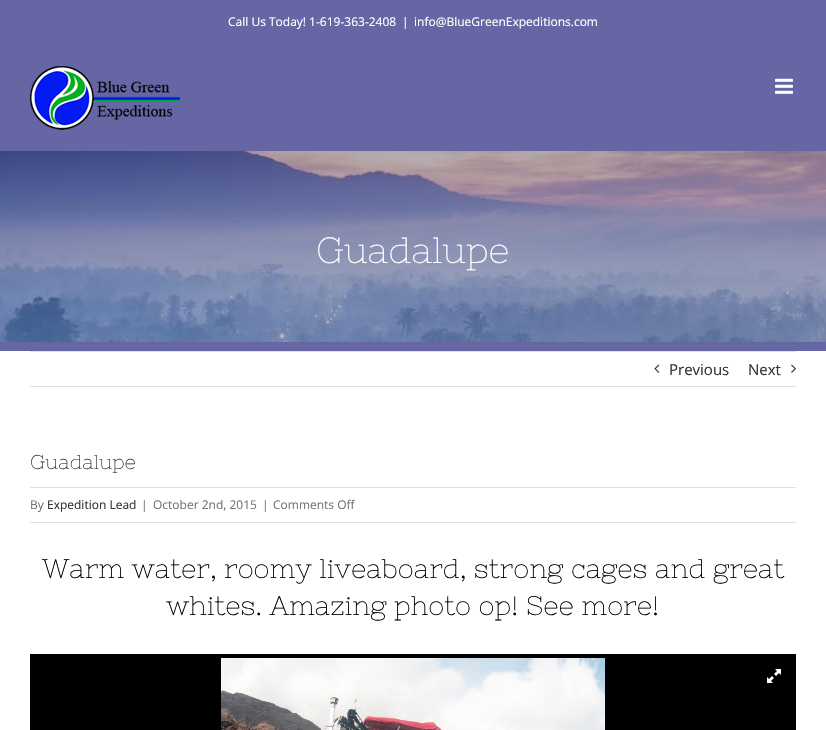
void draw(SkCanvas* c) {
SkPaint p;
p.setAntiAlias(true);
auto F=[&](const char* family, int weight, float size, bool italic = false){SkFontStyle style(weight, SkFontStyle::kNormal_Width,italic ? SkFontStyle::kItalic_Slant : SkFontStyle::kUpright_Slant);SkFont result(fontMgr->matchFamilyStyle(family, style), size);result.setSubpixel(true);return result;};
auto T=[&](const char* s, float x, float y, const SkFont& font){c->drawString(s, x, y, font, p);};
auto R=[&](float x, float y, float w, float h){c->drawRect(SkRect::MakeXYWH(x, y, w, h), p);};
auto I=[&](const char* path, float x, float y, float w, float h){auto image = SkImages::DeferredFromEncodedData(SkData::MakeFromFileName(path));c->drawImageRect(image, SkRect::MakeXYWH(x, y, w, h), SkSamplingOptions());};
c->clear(0xffffffff);
p.setColor(0xff6666a4);
R(0,0,826,151);
auto f1 = F("Open Sans",400,12);
p.setColor(0xffffffff);
T("Call Us Today! 1-619-363-2408",228,26,f1);
T("|",402,26,f1);
T("info@BlueGreenExpeditions.com",414,26,f1);
I("1.png",30,66,150,64);
I("2.png",775,78,18,16);
p.setColor(0xff6666a4);
R(0,342,826,9);
I("3.png",0,151,826,191);
auto f2 = F("Nixie One",400,36.5);
p.setColor(0xffffffff);
T("Guadalupe",316,263,f2);
p.setColor(0xffe0dede);
R(30,351,766,1);
R(30,386,766,1);
I("4.png",654,364,6,9);
auto f3 = F("Open Sans",400,15);
p.setColor(0xff333333);
T("Previous",669,375,f3);
T("Next",748,375,f3);
I("5.png",791,364,5,9);
auto f4 = F("Nixie One",400,20);
T("Guadalupe",30,469,f4);
p.setColor(0xffe0dede);
R(30,487,766,1);
R(30,522,766,1);
p.setColor(0xff747474);
T("By",30,509,f1);
p.setColor(0xff333333);
T("Expedition Lead",47,509,f1);
p.setColor(0xff747474);
T("|",141,509,f1);
T("October 2nd, 2015",153,509,f1);
T("|",262,509,f1);
T("Comments Off",273,509,f1);
auto f5 = F("Nixie One",400,26.9);
p.setColor(0xff000000);
T("Warm water, roomy liveaboard, strong cages and great",42,578,f5);
T("whites. Amazing photo op! See more!",166,615,f5);
R(30,654,766,76);
I("6.png",221,658,384,72);
I("7.png",767,669,14,14);
}
